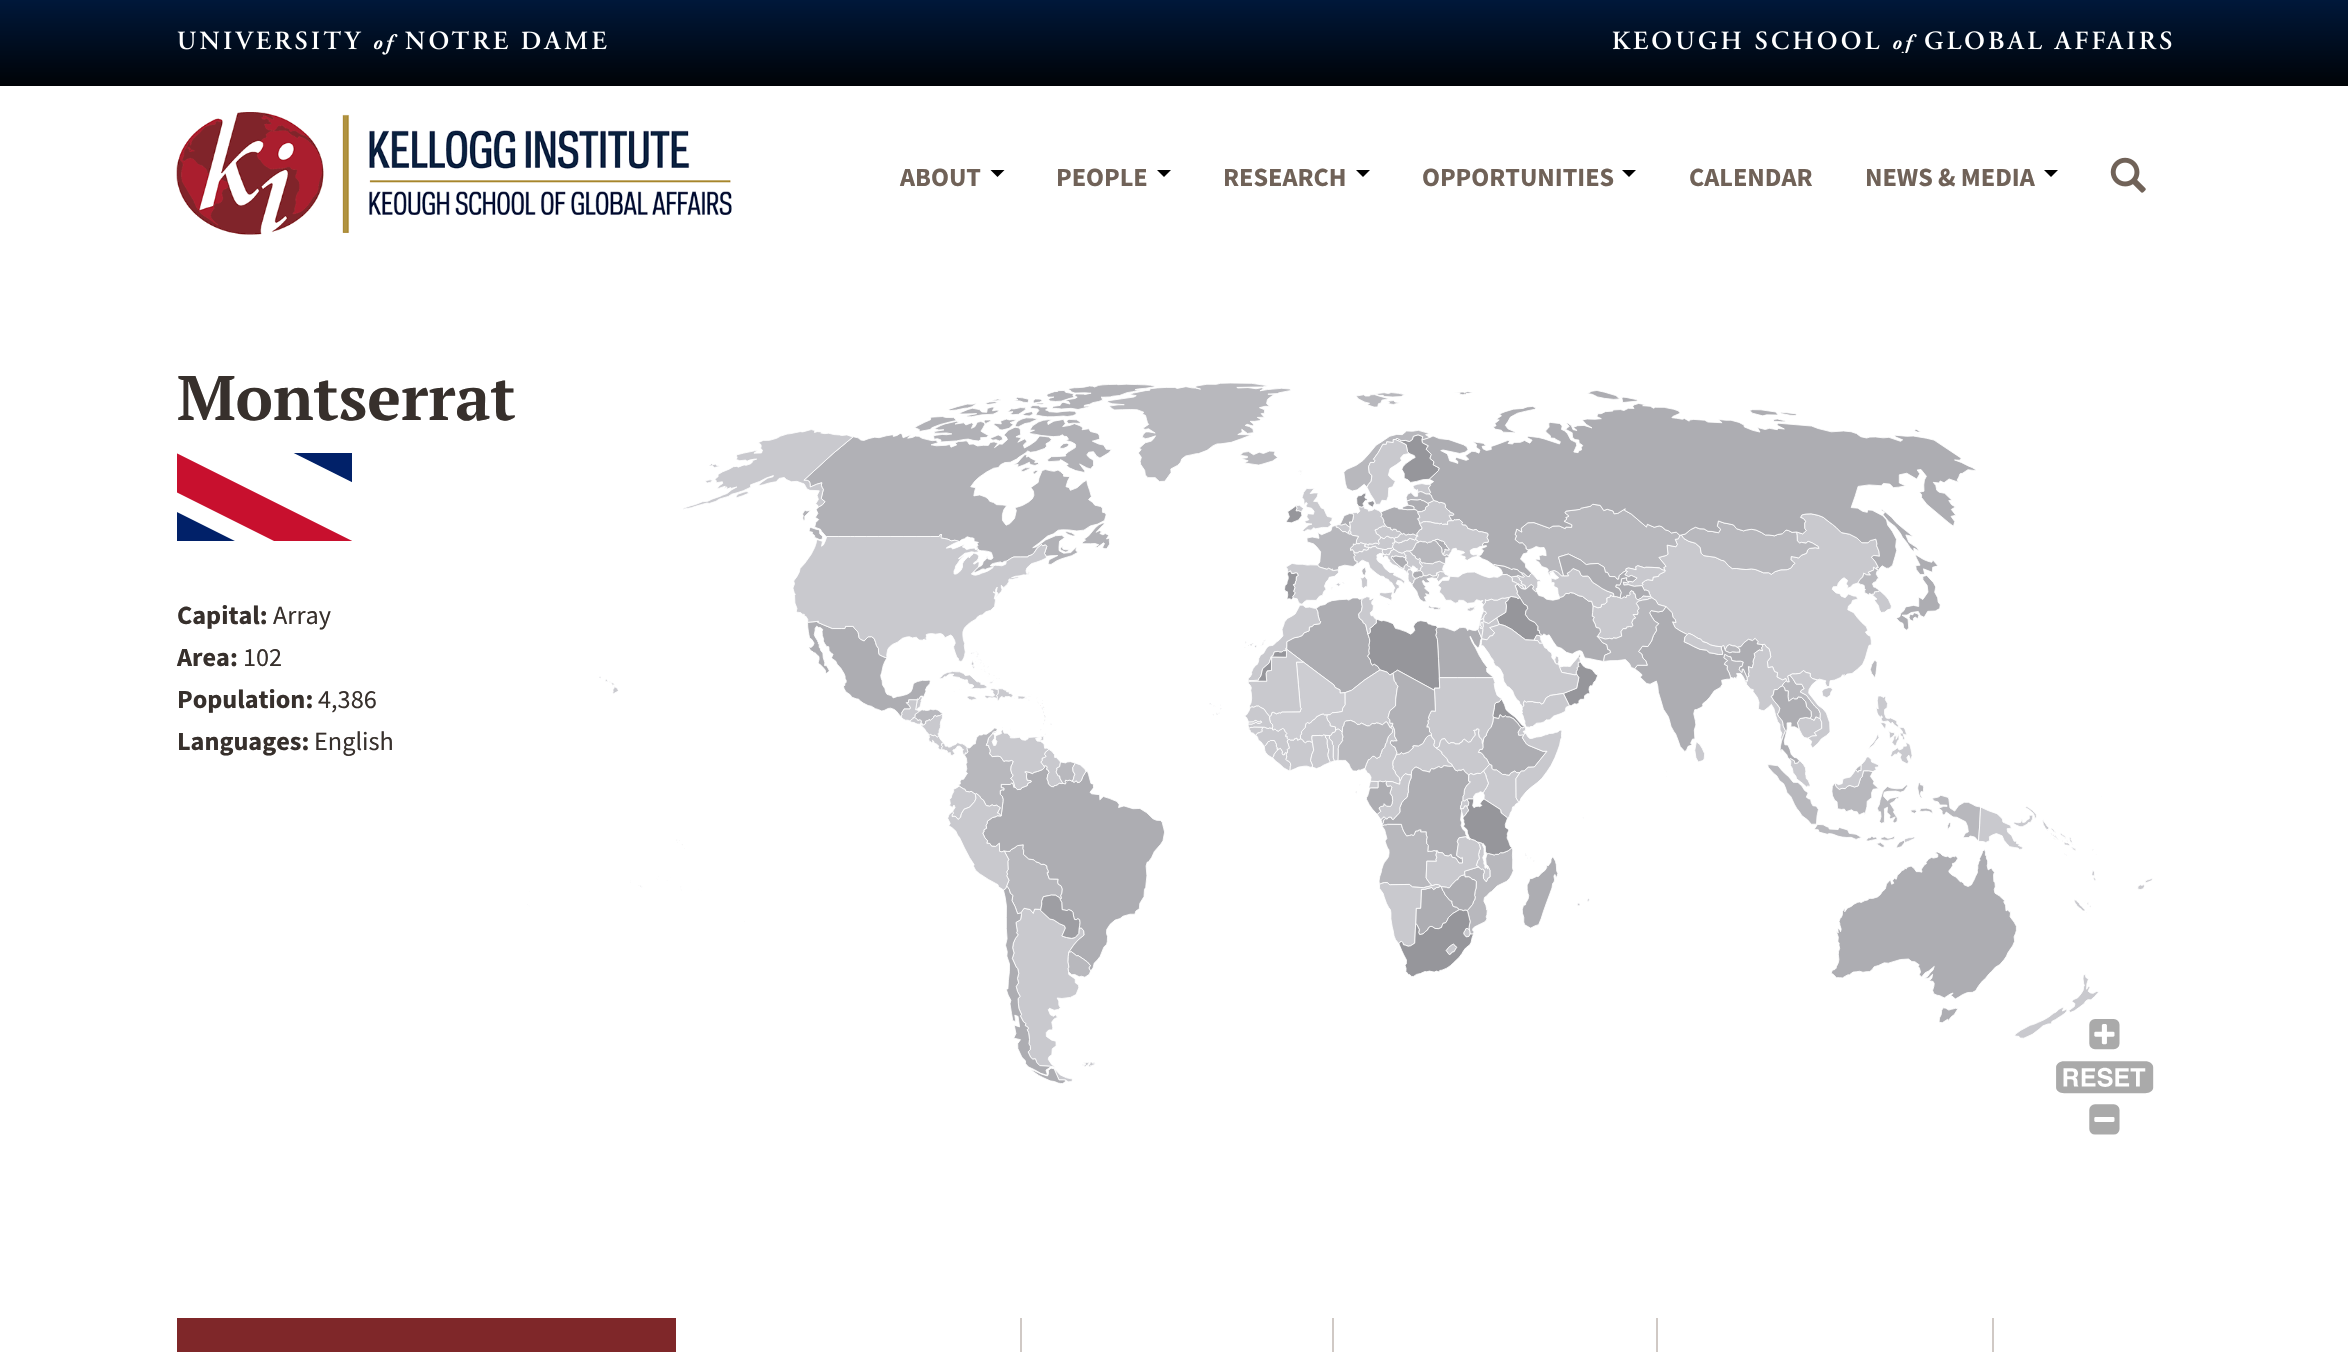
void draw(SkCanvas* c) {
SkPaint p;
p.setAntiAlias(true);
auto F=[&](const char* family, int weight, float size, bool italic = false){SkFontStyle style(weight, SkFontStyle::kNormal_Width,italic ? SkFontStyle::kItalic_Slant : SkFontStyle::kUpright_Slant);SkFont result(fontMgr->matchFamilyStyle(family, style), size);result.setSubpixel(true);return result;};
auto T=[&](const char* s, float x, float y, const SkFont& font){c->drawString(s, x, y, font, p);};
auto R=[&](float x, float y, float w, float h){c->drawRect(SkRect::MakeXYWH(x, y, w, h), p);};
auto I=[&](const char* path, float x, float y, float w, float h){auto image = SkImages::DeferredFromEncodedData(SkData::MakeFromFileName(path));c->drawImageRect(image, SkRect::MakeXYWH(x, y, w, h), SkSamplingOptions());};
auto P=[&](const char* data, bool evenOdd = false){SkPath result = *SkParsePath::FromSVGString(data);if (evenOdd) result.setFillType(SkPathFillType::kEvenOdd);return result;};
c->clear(0xffffffff);
{
const SkColor colors[] = {0xff00183a,0xff000307};
const float stops[] = {0,1};
const SkPoint ends[] = {{1174,0}, {1174,86}};
p.setShader(SkGradientShader::MakeLinear(ends, colors, stops, 2, SkTileMode::kClamp));
p.setAlpha(255);
}
R(0,0,2348,86);
I("1.png",177,30,430,25);
I("2.png",1612,31,560,22);
I("3.png",176,112,556,123);
auto f1 = F("Source Sans Pro",700,26.25);
p.setShader(nullptr);
p.setColor(0xff706258);
T("ABOUT",900,186,f1);
p.setColor(0xff000000);
c->drawPath(P("M990.5 170h14l-7 7z"),p);
p.setColor(0xff706258);
T("PEOPLE",1056,186,f1);
p.setColor(0xff000000);
c->drawPath(P("M1157 170h14l-7 7z"),p);
p.setColor(0xff706258);
T("RESEARCH",1223,186,f1);
p.setColor(0xff000000);
c->drawPath(P("M1356 170h14l-7 7z"),p);
p.setColor(0xff706258);
T("OPPORTUNITIES",1422,186,f1);
p.setColor(0xff000000);
c->drawPath(P("M1622 170h14l-7 7z"),p);
p.setColor(0xff706258);
T("CALENDAR",1689,186,f1);
T("NEWS & MEDIA",1865,186,f1);
p.setColor(0xff000000);
c->drawPath(P("M2044 170h14l-7 7z"),p);
I("4.png",2110,157,36,36);
auto f2 = F("PT Serif",700,63);
p.setColor(0xff37302c);
T("Montserrat",177,420,f2);
I("5.png",177,453,175,88);
T("Capital:",177,624,f1);
auto f3 = F("Source Sans Pro",400,26.25);
T("Array",273,624,f3);
T("Area:",177,666,f1);
T("102",243,666,f3);
T("Population:",177,708,f1);
T("4,386",318,708,f3);
T("Languages:",177,750,f1);
T("English",314,750,f3);
I("6.png",527,383,1627,752);
p.setColor(0xff7f2729);
R(177,1318,499,34);
p.setColor(0xffd0c9c5);
R(1020,1318,2,34);
R(1332,1318,2,34);
R(1656,1318,2,34);
R(1992,1318,2,34);
}
